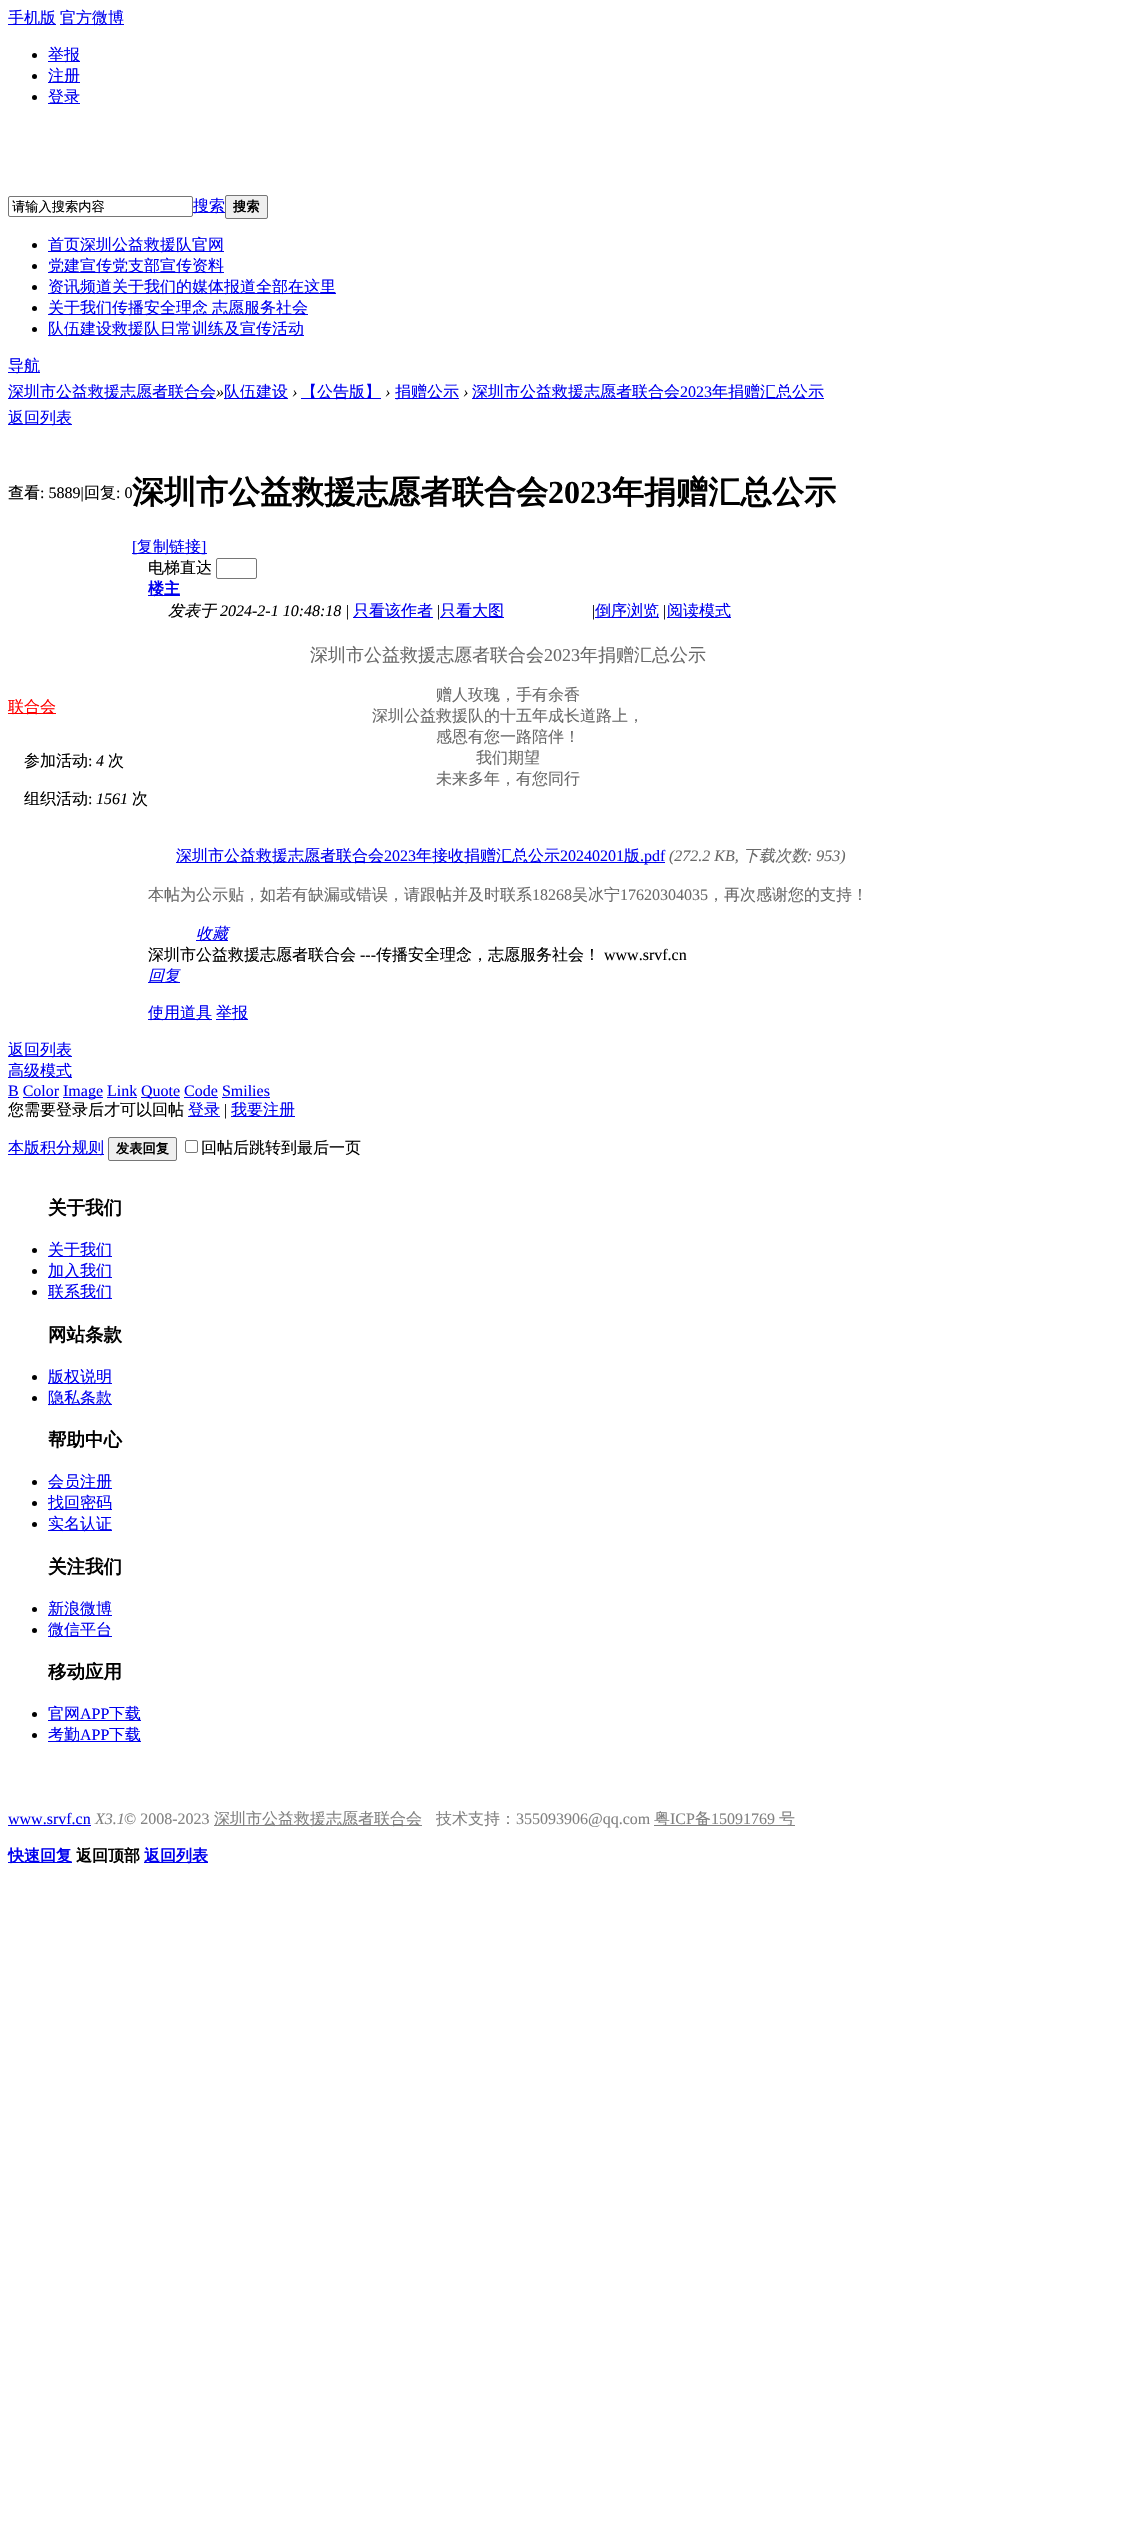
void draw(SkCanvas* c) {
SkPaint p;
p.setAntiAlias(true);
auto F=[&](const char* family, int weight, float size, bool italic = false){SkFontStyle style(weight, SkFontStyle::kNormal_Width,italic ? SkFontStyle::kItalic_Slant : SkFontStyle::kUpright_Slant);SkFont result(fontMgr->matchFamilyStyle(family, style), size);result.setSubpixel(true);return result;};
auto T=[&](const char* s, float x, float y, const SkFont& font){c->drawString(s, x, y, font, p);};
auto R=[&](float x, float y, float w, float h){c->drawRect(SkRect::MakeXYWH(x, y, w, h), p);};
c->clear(0xffffffff);
p.setColor(0xff0000ee);
R(8,24,48,1);
auto f1 = F("WenQuanYi Zen Hei",500,16);
T("手机版",8,23,f1);
R(60,24,64,1);
T("官方微博",60,23,f1);
p.setColor(0xff000000);
c->drawCircle(34.5,55.5,2.5,p);
p.setColor(0xff0000ee);
R(48,61,32,1);
T("举报",48,60,f1);
p.setColor(0xff000000);
c->drawCircle(34.5,76.5,2.5,p);
p.setColor(0xff0000ee);
R(48,82,32,1);
T("注册",48,81,f1);
p.setColor(0xff000000);
c->drawCircle(34.5,97.5,2.5,p);
p.setColor(0xff0000ee);
R(48,103,32,1);
T("登录",48,102,f1);
p.setStroke(true);
p.setStrokeWidth(1);
p.setColor(0xff767676);
c->drawRoundRect(SkRect::MakeXYWH(8.5,196.5,184,20),1.5,1.5,p);
auto f2 = F("WenQuanYi Zen Hei",500,13.25);
p.setStroke(false);
p.setColor(0xff000000);
T("请输入搜索内容",12,211,f2);
p.setColor(0xff0000ee);
R(193,212,32,1);
T("搜索",193,211,f1);
p.setColor(0xffefefef);
c->drawRoundRect(SkRect::MakeXYWH(225.5,195.5,42,23),1.5,1.5,p);
p.setStroke(true);
p.setColor(0xff767676);
c->drawRoundRect(SkRect::MakeXYWH(225.5,195.5,42,23),1.5,1.5,p);
auto f3 = F("WenQuanYi Zen Hei",700,13.25);
p.setStroke(false);
p.setColor(0xff000000);
T("搜索",233,211,f3);
c->drawCircle(34.5,245.5,2.5,p);
p.setColor(0xff0000ee);
R(48,251,176,1);
T("首页深圳公益救援队官网",48,250,f1);
p.setColor(0xff000000);
c->drawCircle(34.5,266.5,2.5,p);
p.setColor(0xff0000ee);
R(48,272,176,1);
T("党建宣传党支部宣传资料",48,271,f1);
p.setColor(0xff000000);
c->drawCircle(34.5,287.5,2.5,p);
p.setColor(0xff0000ee);
R(48,293,288,1);
T("资讯频道关于我们的媒体报道全部在这里",48,292,f1);
p.setColor(0xff000000);
c->drawCircle(34.5,308.5,2.5,p);
p.setColor(0xff0000ee);
R(48,314,260,1);
T("关于我们传播安全理念",48,313,f1);
T("志愿服务社会",212,313,f1);
p.setColor(0xff000000);
c->drawCircle(34.5,329.5,2.5,p);
p.setColor(0xff0000ee);
R(48,335,256,1);
T("队伍建设救援队日常训练及宣传活动",48,334,f1);
R(8,372,32,1);
T("导航",8,371,f1);
R(8,398,208,1);
T("深圳市公益救援志愿者联合会",8,397,f1);
auto f4 = F("Liberation Serif",400,16,true);
p.setColor(0xff000000);
T("»",216,397,f4);
p.setColor(0xff0000ee);
R(224,398,64,1);
T("队伍建设",224,397,f1);
p.setColor(0xff000000);
T("›",292,397,f4);
p.setColor(0xff0000ee);
R(301,398,80,1);
T("【公告版】",301,397,f1);
p.setColor(0xff000000);
T("›",385,397,f4);
p.setColor(0xff0000ee);
R(395,398,64,1);
T("捐赠公示",395,397,f1);
p.setColor(0xff000000);
T("›",463,397,f4);
p.setColor(0xff0000ee);
R(472,398,352,1);
T("深圳市公益救援志愿者联合会",472,397,f1);
auto f5 = F("Liberation Serif",400,16);
T("2023",680,397,f5);
T("年捐赠汇总公示",712,397,f1);
R(8,424,64,1);
T("返回列表",8,423,f1);
p.setColor(0xff000000);
T("查看",8,498,f1);
T(": 5889|",40,498,f5);
T("回复",84,498,f1);
T(": 0",116,498,f5);
auto f6 = F("WenQuanYi Zen Hei",700,32);
T("深圳市公益救援志愿者联合会",132,503,f6);
auto f7 = F("Liberation Serif",700,32);
T("2023",548,503,f7);
T("年捐赠汇总公示",612,503,f6);
p.setColor(0xff0000ee);
R(132,553,75,1);
T("[",132,552,f5);
T("复制链接",137,552,f1);
T("]",201,552,f5);
p.setColor(0xffff0000);
R(8,713,48,1);
T("联合会",8,712,f1);
p.setColor(0xff000000);
T("参加活动",24,766,f1);
T(":",88,766,f5);
T("4",96,766,f4);
T("次",108,766,f1);
T("组织活动",24,804,f1);
T(":",88,804,f5);
T("1561",96,804,f4);
T("次",132,804,f1);
T("电梯直达",148,573,f1);
p.setStroke(true);
p.setColor(0xff767676);
c->drawRoundRect(SkRect::MakeXYWH(216.5,558.5,40,20),1.5,1.5,p);
p.setStroke(false);
p.setColor(0xff0000ee);
R(148,595,32,1);
auto f8 = F("WenQuanYi Zen Hei",700,16);
T("楼主",148,594,f8);
auto f9 = F("WenQuanYi Zen Hei",500,16,true);
p.setColor(0xff000000);
T("发表于",168,616,f9);
T("2024-2-1 10:48:18",220,616,f4);
T("|",346,616,f5);
p.setColor(0xff0000ee);
R(353,617,80,1);
T("只看该作者",353,616,f1);
p.setColor(0xff000000);
T("|",437,616,f5);
p.setColor(0xff0000ee);
R(440,617,64,1);
T("只看大图",440,616,f1);
p.setColor(0xff000000);
T("|",592,616,f5);
p.setColor(0xff0000ee);
R(595,617,64,1);
T("倒序浏览",595,616,f1);
p.setColor(0xff000000);
T("|",663,616,f5);
p.setColor(0xff0000ee);
R(667,617,64,1);
T("阅读模式",667,616,f1);
auto f10 = F("WenQuanYi Zen Hei",500,18);
p.setColor(0xff696969);
T("深圳市公益救援志愿者联合会",310,661,f10);
auto f11 = F("Liberation Serif",400,18);
T("2023",544,661,f11);
T("年捐赠汇总公示",580,661,f10);
T("赠人玫瑰，手有余香",436,700,f1);
T("深圳公益救援队的十五年成长道路上，",372,721,f1);
T("感恩有您一路陪伴！",436,742,f1);
T("我们期望",476,763,f1);
T("未来多年，有您同行",436,784,f1);
p.setColor(0xff0000ee);
R(176,862,489,1);
T("深圳市公益救援志愿者联合会",176,861,f1);
T("2023",384,861,f5);
T("年接收捐赠汇总公示",416,861,f1);
T("20240201",560,861,f5);
T("版",624,861,f1);
T(".pdf",640,861,f5);
p.setColor(0xff696969);
T("(272.2 KB,",669,861,f4);
T("下载次数",743,861,f9);
T(": 953)",807,861,f4);
T("本帖为公示贴，如若有缺漏或错误，请跟帖并及时联系",148,900,f1);
T("18268",532,900,f5);
T("吴冰宁",572,900,f1);
T("17620304035",620,900,f5);
T("，再次感谢您的支持！",708,900,f1);
p.setColor(0xff0000ee);
R(196,940,32,1);
T("收藏",196,939,f9);
p.setColor(0xff000000);
T("深圳市公益救援志愿者联合会",148,960,f1);
T("---",360,960,f5);
T("传播安全理念，志愿服务社会！",376,960,f1);
T("www.srvf.cn",604,960,f5);
p.setColor(0xff0000ee);
R(148,982,32,1);
T("回复",148,981,f9);
R(148,1019,64,1);
T("使用道具",148,1018,f1);
R(216,1019,32,1);
T("举报",216,1018,f1);
R(8,1056,64,1);
T("返回列表",8,1055,f1);
R(8,1077,64,1);
T("高级模式",8,1076,f1);
T("B Color",8,1096,f5);
R(8,1097,11,1);
R(63,1097,40,1);
T("Image Link",63,1096,f5);
R(141,1097,39,1);
T("Quote Code Smilies",141,1096,f5);
R(23,1097,36,1);
R(107,1097,30,1);
R(184,1097,34,1);
R(222,1097,48,1);
p.setColor(0xff000000);
T("您需要登录后才可以回帖",8,1115,f1);
p.setColor(0xff0000ee);
R(188,1116,32,1);
T("登录",188,1115,f1);
p.setColor(0xff000000);
T("|",224,1115,f5);
p.setColor(0xff0000ee);
R(231,1116,64,1);
T("我要注册",231,1115,f1);
R(8,1154,96,1);
T("本版积分规则",8,1153,f1);
p.setColor(0xffefefef);
c->drawRoundRect(SkRect::MakeXYWH(108.5,1137.5,68,23),1.5,1.5,p);
p.setStroke(true);
p.setColor(0xff767676);
c->drawRoundRect(SkRect::MakeXYWH(108.5,1137.5,68,23),1.5,1.5,p);
p.setStroke(false);
p.setColor(0xff000000);
T("发表回复",116,1153,f3);
p.setStroke(true);
p.setColor(0xff767676);
c->drawRoundRect(SkRect::MakeXYWH(185.5,1140.5,12,12),1.5,1.5,p);
p.setStroke(false);
p.setColor(0xff000000);
T("回帖后跳转到最后一页",201,1153,f1);
auto f12 = F("WenQuanYi Zen Hei",700,18.5);
T("关于我们",48,1214,f12);
c->drawCircle(34.5,1250.5,2.5,p);
p.setColor(0xff0000ee);
R(48,1256,64,1);
T("关于我们",48,1255,f1);
p.setColor(0xff000000);
c->drawCircle(34.5,1271.5,2.5,p);
p.setColor(0xff0000ee);
R(48,1277,64,1);
T("加入我们",48,1276,f1);
p.setColor(0xff000000);
c->drawCircle(34.5,1292.5,2.5,p);
p.setColor(0xff0000ee);
R(48,1298,64,1);
T("联系我们",48,1297,f1);
p.setColor(0xff000000);
T("网站条款",48,1341,f12);
c->drawCircle(34.5,1377.5,2.5,p);
p.setColor(0xff0000ee);
R(48,1383,64,1);
T("版权说明",48,1382,f1);
p.setColor(0xff000000);
c->drawCircle(34.5,1398.5,2.5,p);
p.setColor(0xff0000ee);
R(48,1404,64,1);
T("隐私条款",48,1403,f1);
p.setColor(0xff000000);
T("帮助中心",48,1446,f12);
c->drawCircle(34.5,1482.5,2.5,p);
p.setColor(0xff0000ee);
R(48,1488,64,1);
T("会员注册",48,1487,f1);
p.setColor(0xff000000);
c->drawCircle(34.5,1503.5,2.5,p);
p.setColor(0xff0000ee);
R(48,1509,64,1);
T("找回密码",48,1508,f1);
p.setColor(0xff000000);
c->drawCircle(34.5,1524.5,2.5,p);
p.setColor(0xff0000ee);
R(48,1530,64,1);
T("实名认证",48,1529,f1);
p.setColor(0xff000000);
T("关注我们",48,1573,f12);
c->drawCircle(34.5,1609.5,2.5,p);
p.setColor(0xff0000ee);
R(48,1615,64,1);
T("新浪微博",48,1614,f1);
p.setColor(0xff000000);
c->drawCircle(34.5,1630.5,2.5,p);
p.setColor(0xff0000ee);
R(48,1636,64,1);
T("微信平台",48,1635,f1);
p.setColor(0xff000000);
T("移动应用",48,1678,f12);
c->drawCircle(34.5,1714.5,2.5,p);
p.setColor(0xff0000ee);
R(48,1720,93,1);
T("官网",48,1719,f1);
T("APP",80,1719,f5);
T("下载",109,1719,f1);
p.setColor(0xff000000);
c->drawCircle(34.5,1735.5,2.5,p);
p.setColor(0xff0000ee);
R(48,1741,93,1);
T("考勤",48,1740,f1);
T("APP",80,1740,f5);
T("下载",109,1740,f1);
T("www.srvf.cn",8,1824,f5);
R(8,1825,83,1);
p.setColor(0xff818181);
T("X3.1",95,1824,f4);
T("© 2008-2023",124,1824,f5);
R(214,1825,208,1);
T("深圳市公益救援志愿者联合会",214,1824,f1);
T("技术支持：",436,1824,f1);
T("355093906@qq.com",516,1824,f5);
R(654,1825,141,1);
T("粤",654,1824,f1);
T("ICP",670,1824,f5);
T("备",695,1824,f1);
T("15091769",711,1824,f5);
T("号",779,1824,f1);
p.setColor(0xff0000ee);
R(8,1862,64,1);
T("快速回复",8,1861,f8);
p.setColor(0xff000000);
T("返回顶部",76,1861,f8);
p.setColor(0xff0000ee);
R(144,1862,64,1);
T("返回列表",144,1861,f8);
}
